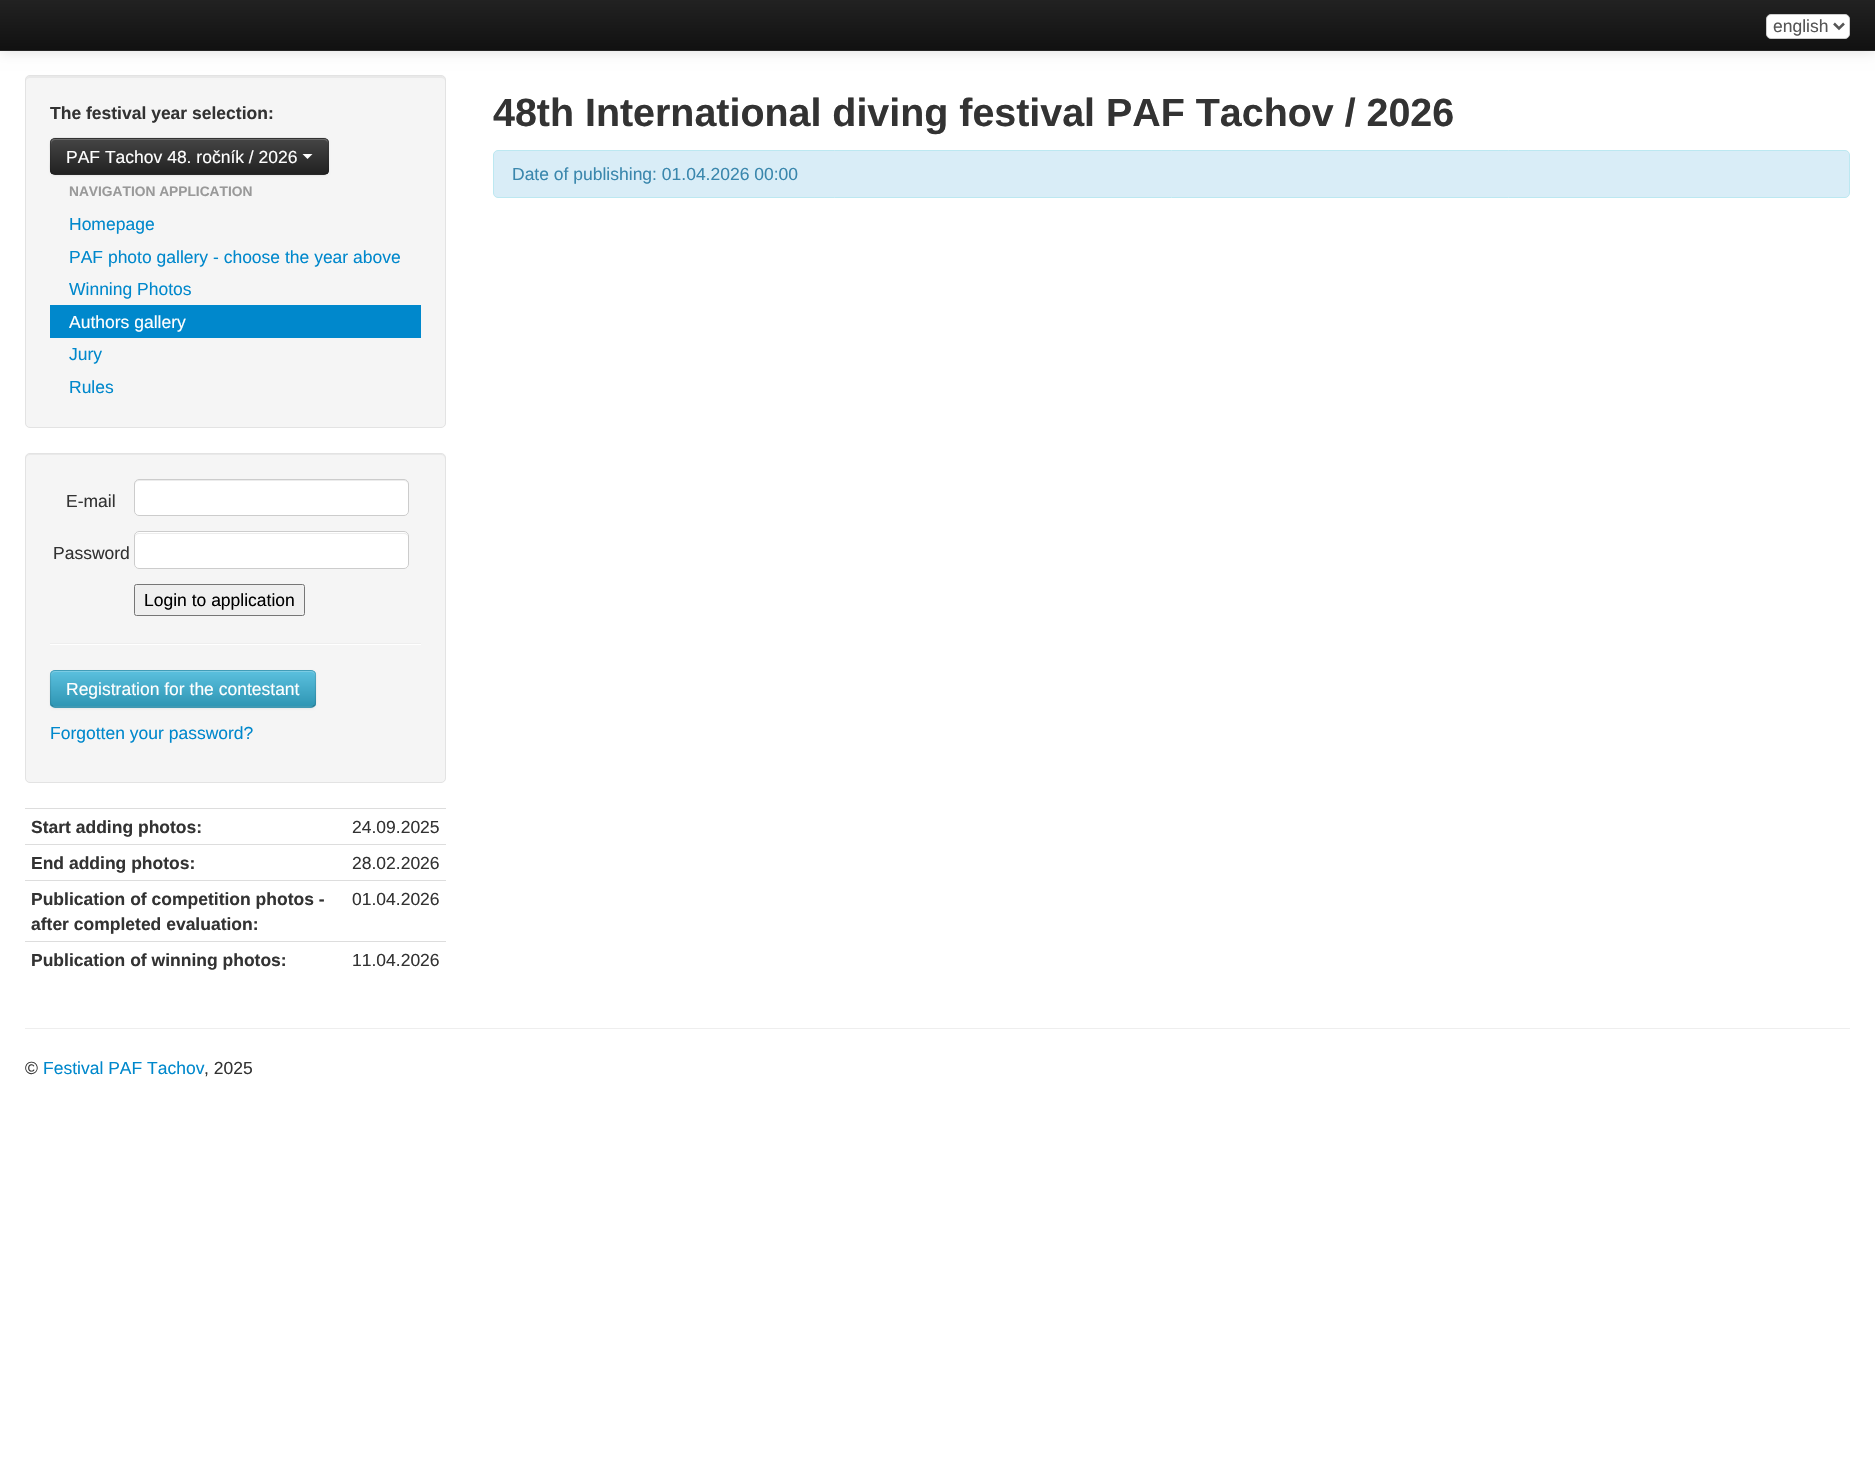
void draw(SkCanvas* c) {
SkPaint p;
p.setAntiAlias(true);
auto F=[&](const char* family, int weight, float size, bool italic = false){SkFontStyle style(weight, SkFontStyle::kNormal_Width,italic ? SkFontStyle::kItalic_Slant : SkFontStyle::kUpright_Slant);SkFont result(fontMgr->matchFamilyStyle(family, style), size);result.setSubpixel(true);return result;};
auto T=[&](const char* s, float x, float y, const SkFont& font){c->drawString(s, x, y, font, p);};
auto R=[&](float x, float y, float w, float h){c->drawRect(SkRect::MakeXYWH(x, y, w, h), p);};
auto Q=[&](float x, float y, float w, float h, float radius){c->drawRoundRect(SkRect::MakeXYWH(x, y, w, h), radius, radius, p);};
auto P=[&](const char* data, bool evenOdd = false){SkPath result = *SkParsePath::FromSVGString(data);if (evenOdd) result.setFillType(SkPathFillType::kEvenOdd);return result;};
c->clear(0xffffffff);
p.setColor(0x1a000000);
p.setMaskFilter(SkMaskFilter::MakeBlur(kNormal_SkBlurStyle, 6));
c->drawRect(SkRect::MakeXYWH(0,1,1875,52),p);
p.setMaskFilter(nullptr);
{
const SkColor colors[] = {0xff222222,0xff111111};
const float stops[] = {0,1};
const SkPoint ends[] = {{938,0}, {938,50}};
p.setShader(SkGradientShader::MakeLinear(ends, colors, stops, 2, SkTileMode::kClamp));
p.setAlpha(255);
}
R(0,0,1875,50);
p.setShader(nullptr);
p.setColor(0xff252525);
R(0,50,1875,1);
p.setColor(0xffffffff);
c->drawRoundRect(SkRect::MakeXYWH(1766.5,14.5,83,24),4.5,4.5,p);
p.setStroke(true);
p.setStrokeWidth(1);
p.setColor(0xffcccccc);
c->drawRoundRect(SkRect::MakeXYWH(1766.5,14.5,83,24),4.5,4.5,p);
p.setStrokeWidth(2.5);
p.setColor(0xff555555);
c->drawPath(P("M1834 23.5l5 5l5-5"),p);
auto f1 = F("Liberation Sans",400,17.5);
p.setStroke(false);
T("english",1773,32,f1);
p.setColor(0xfff5f5f5);
Q(25,75,421,353,5);
p.setColor(0xffe9e9e9);
c->drawPath(P("M30 78h411c2 0 4 1 4 3v-1c0-2-2-4-4-4h-411c-2 0-4 2-4 4v1c0-2 2-3 4-3z"),p);
p.setStroke(true);
p.setStrokeWidth(1);
p.setColor(0xffe3e3e3);
c->drawRoundRect(SkRect::MakeXYWH(25.5,75.5,420,352),4.5,4.5,p);
auto f2 = F("Liberation Sans",700,17.5);
p.setStroke(false);
p.setColor(0xff333333);
T("The festival year selection:",50,119,f2);
p.setColor(0x0d000000);
p.setMaskFilter(SkMaskFilter::MakeBlur(kNormal_SkBlurStyle, 1));
c->drawRoundRect(SkRect::MakeXYWH(50,139,279,37),5,5,p);
p.setMaskFilter(nullptr);
p.setColor(0xff363636);
Q(50,138,279,37,5);
c->save();
c->clipPath(P("M55 138h269c3 0 5 2 5 5v27c0 3-2 5-5 5h-269c-3 0-5-2-5-5v-27c0-3 2-5 5-5z"),true);
{
const SkColor colors[] = {0xff444444,0xff222222};
const float stops[] = {0,1};
const SkPoint ends[] = {{189,139}, {189,174}};
p.setShader(SkGradientShader::MakeLinear(ends, colors, stops, 2, SkTileMode::kClamp));
p.setAlpha(255);
}
R(50,139,279,35);
c->restore();
p.setShader(nullptr);
p.setColor(0xff696969);
c->drawPath(P("M55 140h269c2 0 4 2 4 4c0-3-1-5-4-5h-269c-3 0-4 2-4 5c0-2 2-4 4-4z"),p);
p.setStroke(true);
p.setStrokeWidth(1.2);
p.setColor(0x40000000);
c->drawPath(P("M327 173c-1 1-2 1.5-3 1.5h-269c-1 0-2.5-.5-3-1.5"),p);
p.setColor(0x1a000000);
c->drawPath(P("M52 173c-3-2.5-1.5-9-1.5-12v-9.5c0-3-2-13.5 4.5-13.5h269c6 0 4 10.5 4 13.5v9.5c0 3 1.5 9.5-1 12"),p);
p.setStroke(false);
p.setColor(0xffffffff);
T("PAF Tachov 48. ročník / 2026",66,163,f1);
c->drawPath(P("M302.5 154h10l-5 5z"),p);
auto f3 = F("Liberation Sans",700,13.75);
p.setColor(0xff999999);
T("NAVIGATION APPLICATION",69,196,f3);
p.setColor(0xff0088cc);
T("Homepage",69,230,f1);
T("PAF photo gallery - choose the year above",69,263,f1);
T("Winning Photos",69,295,f1);
R(50,305,371,33);
p.setColor(0xffffffff);
T("Authors gallery",69,328,f1);
p.setColor(0xff0088cc);
T("Jury",69,360,f1);
T("Rules",69,393,f1);
p.setColor(0xfff5f5f5);
Q(25,453,421,330,5);
p.setColor(0xffe9e9e9);
c->drawPath(P("M30 455h411c2 0 4 2 4 4v-1c0-2-2-4-4-4h-411c-2 0-4 2-4 4v1c0-2 2-4 4-4z"),p);
p.setStroke(true);
p.setStrokeWidth(1);
p.setColor(0xffe3e3e3);
c->drawRoundRect(SkRect::MakeXYWH(25.5,453.5,420,329),4.5,4.5,p);
p.setStroke(false);
p.setColor(0xff333333);
T("E-mail",66,507,f1);
p.setColor(0xffffffff);
Q(134,479,275,37,5);
p.setColor(0xffececec);
c->drawPath(P("M139 481h265c2 0 4 2 4 4c0-3-1-5-4-5h-265c-3 0-4 2-4 5c0-2 2-4 4-4z"),p);
p.setStroke(true);
p.setColor(0xffcccccc);
c->drawRoundRect(SkRect::MakeXYWH(134.5,479.5,274,36),4.5,4.5,p);
p.setStroke(false);
p.setColor(0xff333333);
T("Password",53,559,f1);
p.setColor(0xffffffff);
Q(134,531,275,38,5);
p.setColor(0xffececec);
c->drawPath(P("M139 534h265c2 0 4 1 4 4c0-3-1-5-4-5h-265c-3 0-4 2-4 5c0-3 2-4 4-4z"),p);
p.setStroke(true);
p.setColor(0xffcccccc);
c->drawRoundRect(SkRect::MakeXYWH(134.5,531.5,274,37),4.5,4.5,p);
p.setStroke(false);
p.setColor(0xffefefef);
c->drawRoundRect(SkRect::MakeXYWH(134.5,584.5,170,31),2,2,p);
p.setStroke(true);
p.setColor(0xff767676);
c->drawRoundRect(SkRect::MakeXYWH(134.5,584.5,170,31),2,2,p);
p.setStroke(false);
p.setColor(0xff000000);
T("Login to application",144,606,f1);
p.setColor(0xffeeeeee);
R(50,643,371,1);
p.setColor(0xffffffff);
R(50,644,371,1);
p.setColor(0x0d000000);
p.setMaskFilter(SkMaskFilter::MakeBlur(kNormal_SkBlurStyle, 1));
c->drawRoundRect(SkRect::MakeXYWH(50,671,266,38),5,5,p);
p.setMaskFilter(nullptr);
p.setColor(0xff49afcd);
Q(50,670,266,38,5);
c->save();
c->clipPath(P("M55 670h256c3 0 5 2 5 5v28c0 3-2 5-5 5h-256c-3 0-5-2-5-5v-28c0-3 2-5 5-5z"),true);
{
const SkColor colors[] = {0xff5bc0de,0xff2f96b4};
const float stops[] = {0,1};
const SkPoint ends[] = {{183,671}, {183,706}};
p.setShader(SkGradientShader::MakeLinear(ends, colors, stops, 2, SkTileMode::kClamp));
p.setAlpha(255);
}
R(50,671,266,35);
c->restore();
p.setShader(nullptr);
p.setColor(0xff7bcce4);
c->drawPath(P("M55 672h256c2 0 4 2 4 4v-1c0-2-2-4-4-4h-256c-2 0-4 2-4 4v1c0-2 2-4 4-4z"),p);
p.setStroke(true);
p.setStrokeWidth(1.2);
p.setColor(0x40000000);
c->drawPath(P("M314.5 705.5c-1 1-2 1.5-3.5 1.5h-256c-1 0-2.5-.5-3-1.5"),p);
p.setColor(0x1a000000);
c->drawPath(P("M52 705.5c-1-.5-1.5-2-1.5-3v-27.5c0-1 .5-2.5 1.5-3c.5-1 2-1.5 3-1.5h256c1.5 0 2.5 .5 3.5 1.5c.5 .5 1 2 1 3v27.5c0 1-.5 2.5-1 3"),p);
p.setStroke(false);
p.setColor(0xffffffff);
T("Registration for the contestant",66,695,f1);
p.setColor(0xff0088cc);
T("Forgotten your password?",50,739,f1);
p.setColor(0xff333333);
T("Start adding photos:",31,833,f2);
p.setColor(0xffdddddd);
R(25,808,421,1);
p.setColor(0xff333333);
T("24.09.2025",352,833,f1);
T("End adding photos:",31,869,f2);
p.setColor(0xffdddddd);
R(25,844,421,1);
p.setColor(0xff333333);
T("28.02.2026",352,869,f1);
T("Publication of competition photos -",31,905,f2);
T("after completed evaluation:",31,930,f2);
p.setColor(0xffdddddd);
R(25,880,421,1);
p.setColor(0xff333333);
T("01.04.2026",352,905,f1);
T("Publication of winning photos:",31,966,f2);
p.setColor(0xffdddddd);
R(25,941,421,1);
p.setColor(0xff333333);
T("11.04.2026",352,966,f1);
auto f4 = F("Liberation Sans",700,39.4);
T("48th International diving festival PAF Tachov / 2026",493,126,f4);
p.setColor(0xffd9edf7);
c->drawRoundRect(SkRect::MakeXYWH(493.5,150.5,1356,47),4.5,4.5,p);
p.setStroke(true);
p.setStrokeWidth(1);
p.setColor(0xffbce8f1);
c->drawRoundRect(SkRect::MakeXYWH(493.5,150.5,1356,47),4.5,4.5,p);
p.setStroke(false);
p.setColor(0xff3a87ad);
T("Date of publishing: 01.04.2026 00:00",512,180,f1);
p.setColor(0xffeeeeee);
R(25,1028,1825,1);
p.setColor(0xff333333);
T("©",25,1074,f1);
p.setColor(0xff0088cc);
T("Festival PAF Tachov",43,1074,f1);
p.setColor(0xff333333);
T(", 2025",204,1074,f1);
}
